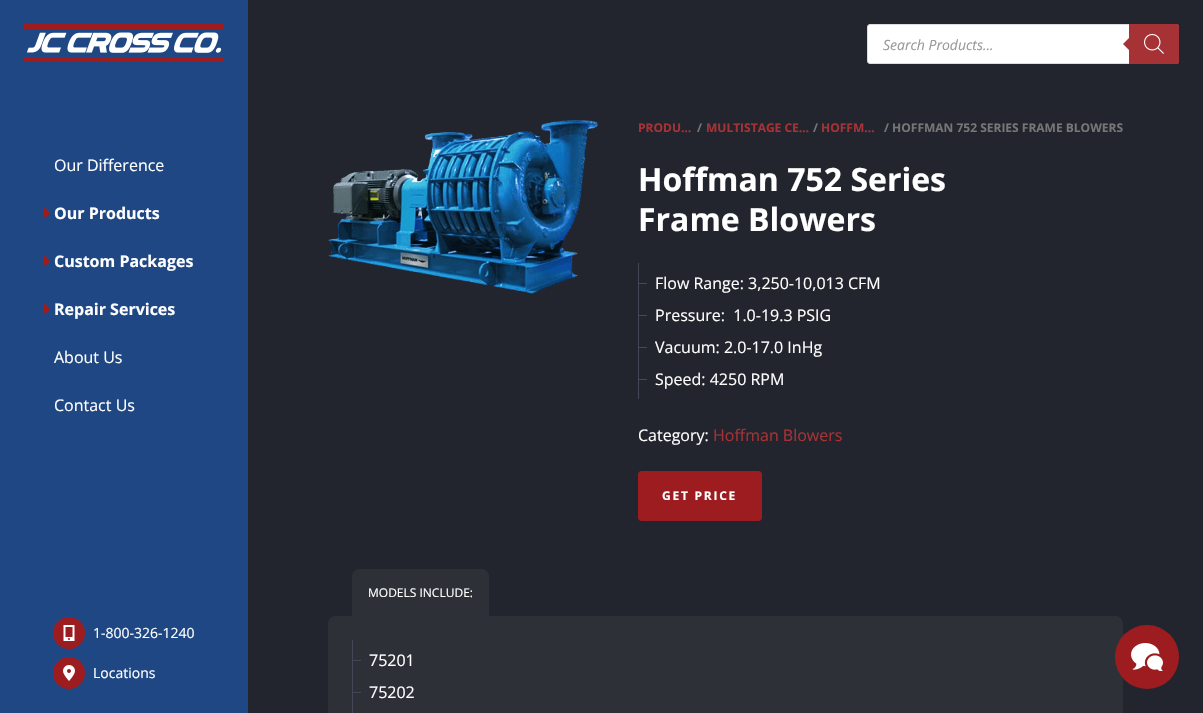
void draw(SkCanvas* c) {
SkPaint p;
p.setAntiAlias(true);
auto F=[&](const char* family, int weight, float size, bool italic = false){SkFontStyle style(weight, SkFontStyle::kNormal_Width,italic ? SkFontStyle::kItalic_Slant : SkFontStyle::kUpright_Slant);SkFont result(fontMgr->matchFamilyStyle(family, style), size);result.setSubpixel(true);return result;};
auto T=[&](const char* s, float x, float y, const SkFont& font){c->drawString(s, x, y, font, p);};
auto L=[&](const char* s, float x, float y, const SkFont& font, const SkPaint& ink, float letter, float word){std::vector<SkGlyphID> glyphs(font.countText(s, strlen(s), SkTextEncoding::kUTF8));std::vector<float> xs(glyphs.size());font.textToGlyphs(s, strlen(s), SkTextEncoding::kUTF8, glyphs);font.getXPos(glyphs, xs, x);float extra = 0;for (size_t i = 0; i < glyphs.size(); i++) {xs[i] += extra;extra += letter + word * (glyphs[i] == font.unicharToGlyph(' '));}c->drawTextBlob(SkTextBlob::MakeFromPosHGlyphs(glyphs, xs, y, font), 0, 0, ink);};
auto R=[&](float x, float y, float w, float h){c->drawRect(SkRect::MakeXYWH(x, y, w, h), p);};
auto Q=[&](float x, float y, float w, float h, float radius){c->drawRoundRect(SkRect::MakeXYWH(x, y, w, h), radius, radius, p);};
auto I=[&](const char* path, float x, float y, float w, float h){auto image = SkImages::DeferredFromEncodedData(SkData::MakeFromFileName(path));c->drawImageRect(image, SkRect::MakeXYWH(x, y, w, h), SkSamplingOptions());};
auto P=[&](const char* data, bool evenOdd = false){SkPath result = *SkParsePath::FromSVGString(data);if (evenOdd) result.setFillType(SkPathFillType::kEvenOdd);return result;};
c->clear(0xff23252e);
p.setColor(0xffffffff);
c->drawRoundRect(SkRect::MakeXYWH(867.5,24.5,311,39),2.5,2.5,p);
p.setStroke(true);
p.setStrokeWidth(1);
p.setColor(0xffdddddd);
c->drawRoundRect(SkRect::MakeXYWH(867.5,24.5,311,39),2.5,2.5,p);
auto f1 = F("Open Sans",400,14,true);
p.setStroke(false);
p.setColor(0xff999999);
T("Search Products...",883,50,f1);
p.setColor(0xffa73235);
c->drawPath(P("M1129 24h48c1 0 2 1 2 2v36c0 1-1 2-2 2h-48z"),p);
c->drawPath(P("M1131 36v16l-8-8z"),p);
I("1.png",1144,34,20,20);
p.setColor(0xff1f4783);
R(0,0,248,713);
I("2.png",24,24,200,37);
auto f2 = F("Open Sans",400,16);
p.setColor(0xffffffff);
T("Our Difference",54,171,f2);
I("3.png",44,208,6,10);
auto f3 = F("Open Sans",700,16);
T("Our Products",54,219,f3);
I("3.png",44,256,6,10);
T("Custom Packages",54,267,f3);
I("3.png",44,304,6,10);
T("Repair Services",54,315,f3);
T("About Us",54,363,f2);
T("Contact Us",54,411,f2);
p.setColor(0xff9d1c1f);
c->drawCircle(69,633,16,p);
I("4.png",63,625,12,16);
auto f4 = F("Open Sans",400,14);
p.setColor(0xffffffff);
T("1-800-326-1240",93,638,f4);
p.setColor(0xff9d1c1f);
c->drawCircle(69,673,16,p);
I("5.png",63,665,12,16);
p.setColor(0xffffffff);
T("Locations",93,678,f4);
I("6.png",328,120,270,174);
auto f5 = F("Open Sans",700,12);
p.setColor(0xffa73235);
T("PRODU…",638,132,f5);
p.setColor(0xff767676);
T("/",697,132,f5);
p.setColor(0xffa73235);
T("MULTISTAGE CE…",706,132,f5);
p.setColor(0xff767676);
T("/",813,132,f5);
p.setColor(0xffa73235);
T("HOFFM…",821,132,f5);
p.setColor(0xff767676);
T("/ HOFFMAN 752 SERIES FRAME BLOWERS",884,132,f5);
auto f6 = F("Open Sans",700,32);
p.setColor(0xffffffff);
T("Hoffman 752 Series",638,191,f6);
T("Frame Blowers",638,231,f6);
p.setColor(0xff444757);
R(638,263,1,136);
R(639,283,8,1);
p.setColor(0xffffffff);
T("Flow Range: 3,250-10,013 CFM",655,289,f2);
p.setColor(0xff444757);
R(639,315,8,1);
p.setColor(0xffffffff);
T("Pressure:  1.0-19.3 PSIG",655,321,f2);
p.setColor(0xff444757);
R(639,347,8,1);
p.setColor(0xffffffff);
T("Vacuum: 2.0-17.0 InHg",655,353,f2);
p.setColor(0xff444757);
R(639,379,8,1);
p.setColor(0xffffffff);
T("Speed: 4250 RPM",655,385,f2);
T("Category:",638,441,f2);
p.setColor(0xffa73235);
T("Hoffman Blowers",713,441,f2);
p.setColor(0xff9d1c1f);
Q(638,471,124,50,4);
p.setColor(0xffffffff);
L("GET PRICE",662,500,f5,p,1.75,0);
p.setColor(0xff2e3038);
c->drawPath(P("M360 569h121c4.5 0 8 3.5 8 8v39h-137v-39c0-4.5 3.5-8 8-8z"),p);
auto f7 = F("Open Sans",400,12);
p.setColor(0xffffffff);
T("MODELS INCLUDE:",368,597,f7);
p.setColor(0xff2e3038);
Q(328,616,795,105,8);
p.setColor(0xff444757);
R(352,640,1,73);
R(353,660,8,1);
p.setColor(0xffffffff);
T("75201",369,666,f2);
p.setColor(0xff444757);
R(353,692,8,1);
p.setColor(0xffffffff);
T("75202",369,698,f2);
p.setColor(0xff9d1c1f);
c->drawCircle(1147,657,32,p);
I("7.png",1131,643,32,28);
}
